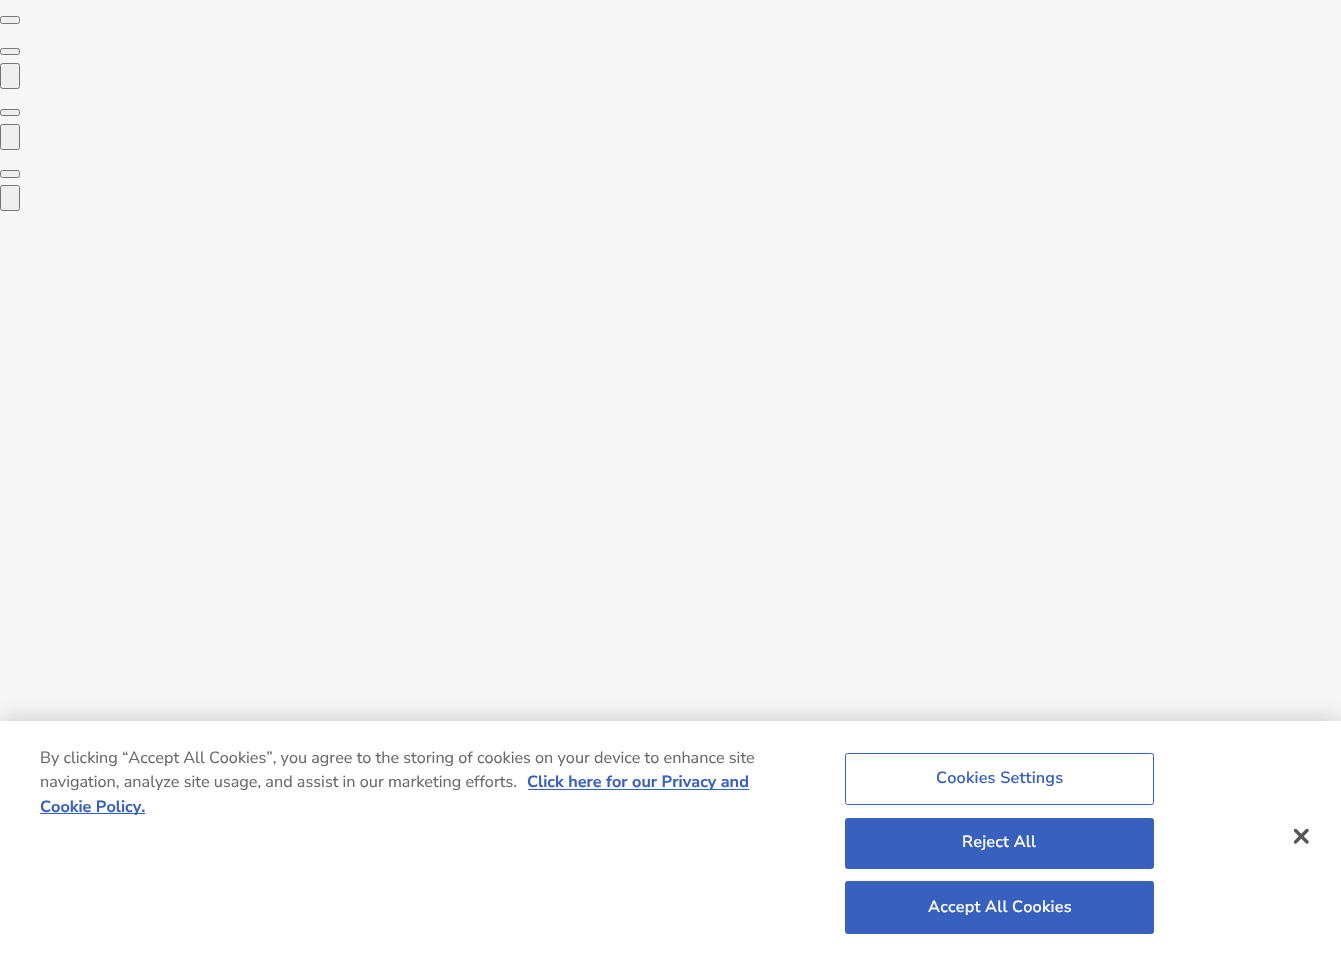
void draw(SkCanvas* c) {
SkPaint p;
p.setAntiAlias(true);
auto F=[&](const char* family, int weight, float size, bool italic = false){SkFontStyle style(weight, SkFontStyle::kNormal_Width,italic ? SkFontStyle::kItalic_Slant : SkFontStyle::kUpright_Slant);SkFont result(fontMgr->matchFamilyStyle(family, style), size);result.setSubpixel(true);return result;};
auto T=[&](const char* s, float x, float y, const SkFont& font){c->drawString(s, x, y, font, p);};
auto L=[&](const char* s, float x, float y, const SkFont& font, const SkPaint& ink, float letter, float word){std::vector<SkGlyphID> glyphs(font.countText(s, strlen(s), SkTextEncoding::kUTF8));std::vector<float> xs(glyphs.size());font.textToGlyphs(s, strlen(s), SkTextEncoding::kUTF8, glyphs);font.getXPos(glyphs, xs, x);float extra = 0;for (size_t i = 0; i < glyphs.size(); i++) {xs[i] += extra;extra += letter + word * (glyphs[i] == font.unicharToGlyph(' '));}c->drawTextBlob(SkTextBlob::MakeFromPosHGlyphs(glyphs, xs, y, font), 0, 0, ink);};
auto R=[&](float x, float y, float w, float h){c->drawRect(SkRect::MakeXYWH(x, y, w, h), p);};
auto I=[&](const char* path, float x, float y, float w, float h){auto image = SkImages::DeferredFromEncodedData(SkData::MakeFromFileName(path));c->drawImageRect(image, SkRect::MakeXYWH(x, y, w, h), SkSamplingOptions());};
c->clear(0xfff7f7f7);
p.setColor(0xffefefef);
c->drawRoundRect(SkRect::MakeXYWH(.5,16.5,19,7),2,2,p);
p.setStroke(true);
p.setStrokeWidth(1);
p.setColor(0xff767676);
c->drawRoundRect(SkRect::MakeXYWH(.5,16.5,19,7),2,2,p);
p.setStroke(false);
p.setColor(0xffefefef);
c->drawRoundRect(SkRect::MakeXYWH(.5,48.5,19,6),2,2,p);
p.setStroke(true);
p.setColor(0xff767676);
c->drawRoundRect(SkRect::MakeXYWH(.5,48.5,19,6),2,2,p);
p.setStroke(false);
p.setColor(0xffefefef);
c->drawRoundRect(SkRect::MakeXYWH(.5,63.5,19,25),2,2,p);
p.setStroke(true);
p.setColor(0xff767676);
c->drawRoundRect(SkRect::MakeXYWH(.5,63.5,19,25),2,2,p);
p.setStroke(false);
p.setColor(0xffefefef);
c->drawRoundRect(SkRect::MakeXYWH(.5,109.5,19,6),2,2,p);
p.setStroke(true);
p.setColor(0xff767676);
c->drawRoundRect(SkRect::MakeXYWH(.5,109.5,19,6),2,2,p);
p.setStroke(false);
p.setColor(0xffefefef);
c->drawRoundRect(SkRect::MakeXYWH(.5,124.5,19,25),2,2,p);
p.setStroke(true);
p.setColor(0xff767676);
c->drawRoundRect(SkRect::MakeXYWH(.5,124.5,19,25),2,2,p);
p.setStroke(false);
p.setColor(0xffefefef);
c->drawRoundRect(SkRect::MakeXYWH(.5,170.5,19,7),2,2,p);
p.setStroke(true);
p.setColor(0xff767676);
c->drawRoundRect(SkRect::MakeXYWH(.5,170.5,19,7),2,2,p);
p.setStroke(false);
p.setColor(0xffefefef);
c->drawRoundRect(SkRect::MakeXYWH(.5,185.5,19,25),2,2,p);
p.setStroke(true);
p.setColor(0xff767676);
c->drawRoundRect(SkRect::MakeXYWH(.5,185.5,19,25),2,2,p);
p.setStroke(false);
p.setColor(0x33000000);
p.setMaskFilter(SkMaskFilter::MakeBlur(kNormal_SkBlurStyle, 11));
c->drawRect(SkRect::MakeXYWH(0,721,1341,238),p);
p.setMaskFilter(nullptr);
p.setColor(0xffffffff);
R(0,721,1341,237);
auto f1 = F("Nunito Sans",400,16.25);
p.setColor(0xff696969);
T("By clicking “Accept All Cookies”, you agree to the storing of cookies on your device to enhance site",40,763,f1);
T("navigation, analyze site usage, and assist in our marketing efforts.",40,787,f1);
p.setColor(0xff3860be);
R(528,789,221,1);
auto f2 = F("Nunito Sans",700,16.25);
T("Click here for our Privacy and",527,787,f2);
R(40,813,105,1);
T("Cookie Policy.",40,812,f2);
p.setStroke(true);
c->drawRoundRect(SkRect::MakeXYWH(845.5,753.5,308,51),2,2,p);
auto f3 = F("Nunito Sans",600,16.25);
p.setStroke(false);
L("Cookies Settings",936,783,f3,p,.2,0);
c->drawRoundRect(SkRect::MakeXYWH(845.5,818.5,308,50),2,2,p);
p.setStroke(true);
c->drawRoundRect(SkRect::MakeXYWH(845.5,818.5,308,50),2,2,p);
p.setStroke(false);
p.setColor(0xffffffff);
L("Reject All",962,847,f3,p,.2,0);
p.setColor(0xff3860be);
c->drawRoundRect(SkRect::MakeXYWH(845.5,881.5,308,52),2,2,p);
p.setStroke(true);
c->drawRoundRect(SkRect::MakeXYWH(845.5,881.5,308,52),2,2,p);
p.setStroke(false);
p.setColor(0xffffffff);
L("Accept All Cookies",928,912,f3,p,.2,0);
I("1.png",1294,829,15,15);
}
